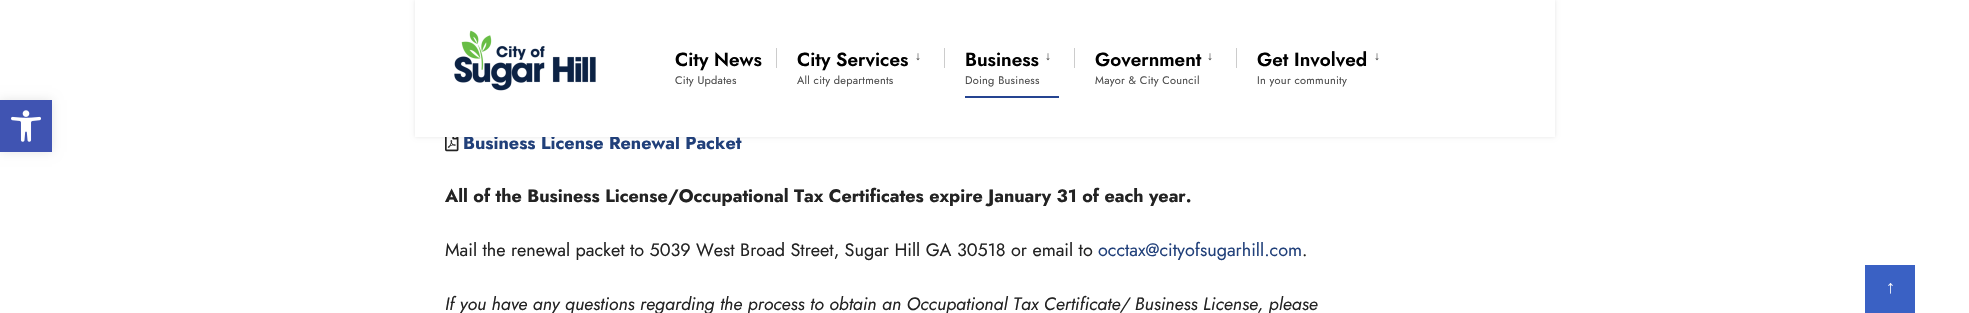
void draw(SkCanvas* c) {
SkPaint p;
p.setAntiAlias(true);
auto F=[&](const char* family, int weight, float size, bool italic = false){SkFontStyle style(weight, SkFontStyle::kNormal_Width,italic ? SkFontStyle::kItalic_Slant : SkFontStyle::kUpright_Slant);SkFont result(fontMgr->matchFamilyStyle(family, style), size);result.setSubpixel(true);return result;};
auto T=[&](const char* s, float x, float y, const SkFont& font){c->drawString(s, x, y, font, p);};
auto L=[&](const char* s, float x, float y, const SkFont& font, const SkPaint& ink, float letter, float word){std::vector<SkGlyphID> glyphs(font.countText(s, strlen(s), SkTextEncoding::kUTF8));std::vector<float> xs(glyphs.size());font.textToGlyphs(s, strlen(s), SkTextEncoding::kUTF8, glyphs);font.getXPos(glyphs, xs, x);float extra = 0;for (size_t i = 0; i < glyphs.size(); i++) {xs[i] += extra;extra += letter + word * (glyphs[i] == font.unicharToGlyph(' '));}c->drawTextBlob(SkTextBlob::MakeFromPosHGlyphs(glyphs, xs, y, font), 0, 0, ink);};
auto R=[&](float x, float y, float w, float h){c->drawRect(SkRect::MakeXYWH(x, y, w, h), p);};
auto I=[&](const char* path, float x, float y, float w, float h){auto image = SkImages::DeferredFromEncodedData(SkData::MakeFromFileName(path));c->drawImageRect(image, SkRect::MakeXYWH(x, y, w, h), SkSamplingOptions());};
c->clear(0xffffffff);
p.setColor(0x1a000000);
p.setMaskFilter(SkMaskFilter::MakeBlur(kNormal_SkBlurStyle, 5));
c->drawRect(SkRect::MakeXYWH(0,100,52,52),p);
p.setMaskFilter(nullptr);
p.setColor(0xff4054b2);
R(0,100,52,52);
I("1.png",11,110,30,32);
I("3.png",445,137,14,15);
p.setColor(0x1a000000);
p.setMaskFilter(SkMaskFilter::MakeBlur(kNormal_SkBlurStyle, 2));
c->drawRect(SkRect::MakeXYWH(415,0,1140,137),p);
p.setMaskFilter(nullptr);
auto f1 = F("Jost",700,18);
p.setColor(0xff21407a);
T("Business License Renewal Packet",463,149,f1);
p.setColor(0xffffffff);
R(415,0,1140,137);
I("2.png",454,30,142,61);
auto f2 = F("Jost",600,19);
p.setColor(0xff000000);
T("City News",675,66,f2);
auto f3 = F("Jost",400,11);
p.setColor(0xff4d4d4d);
L("City Updates",675,84,f3,p,.25,0);
p.setColor(0xffcccccc);
R(776,48,1,20);
p.setColor(0xff000000);
T("City Services",797,66,f2);
auto f4 = F("Liberation Sans",400,12);
p.setColor(0xff4d4d4d);
T("↓",915,60,f4);
L("All city departments",797,84,f3,p,.25,0);
p.setColor(0xffcccccc);
R(944,48,1,20);
p.setColor(0xff254491);
R(965,96,94,2);
p.setColor(0xff000000);
T("Business",965,66,f2);
p.setColor(0xff4d4d4d);
T("↓",1045,60,f4);
L("Doing Business",965,84,f3,p,.25,0);
p.setColor(0xffcccccc);
R(1074,48,1,20);
p.setColor(0xff000000);
T("Government",1095,66,f2);
p.setColor(0xff4d4d4d);
T("↓",1207,60,f4);
L("Mayor & City Council",1095,84,f3,p,.25,0);
p.setColor(0xffcccccc);
R(1236,48,1,20);
p.setColor(0xff000000);
T("Get Involved",1257,66,f2);
p.setColor(0xff4d4d4d);
T("↓",1374,60,f4);
L("In your community",1257,84,f3,p,.25,0);
p.setColor(0xff232323);
T("All of the Business License/Occupational Tax Certificates expire January 31 of each year.",445,202,f1);
auto f5 = F("Jost",400,18);
T("Mail the renewal packet to 5039 West Broad Street, Sugar Hill GA 30518 or email to",445,256,f5);
p.setColor(0xff21407a);
T("occtax@cityofsugarhill.com",1098,256,f5);
p.setColor(0xff232323);
T(".",1302,256,f5);
auto f6 = F("Jost",400,18,true);
T("If you have any questions regarding the process to obtain an Occupational Tax Certificate/ Business License, please",445,310,f6);
p.setColor(0xff3a61c4);
R(1865,265,50,48);
auto f7 = F("Liberation Serif",400,18);
p.setColor(0xffffffff);
T("↑",1886,293,f7);
}
